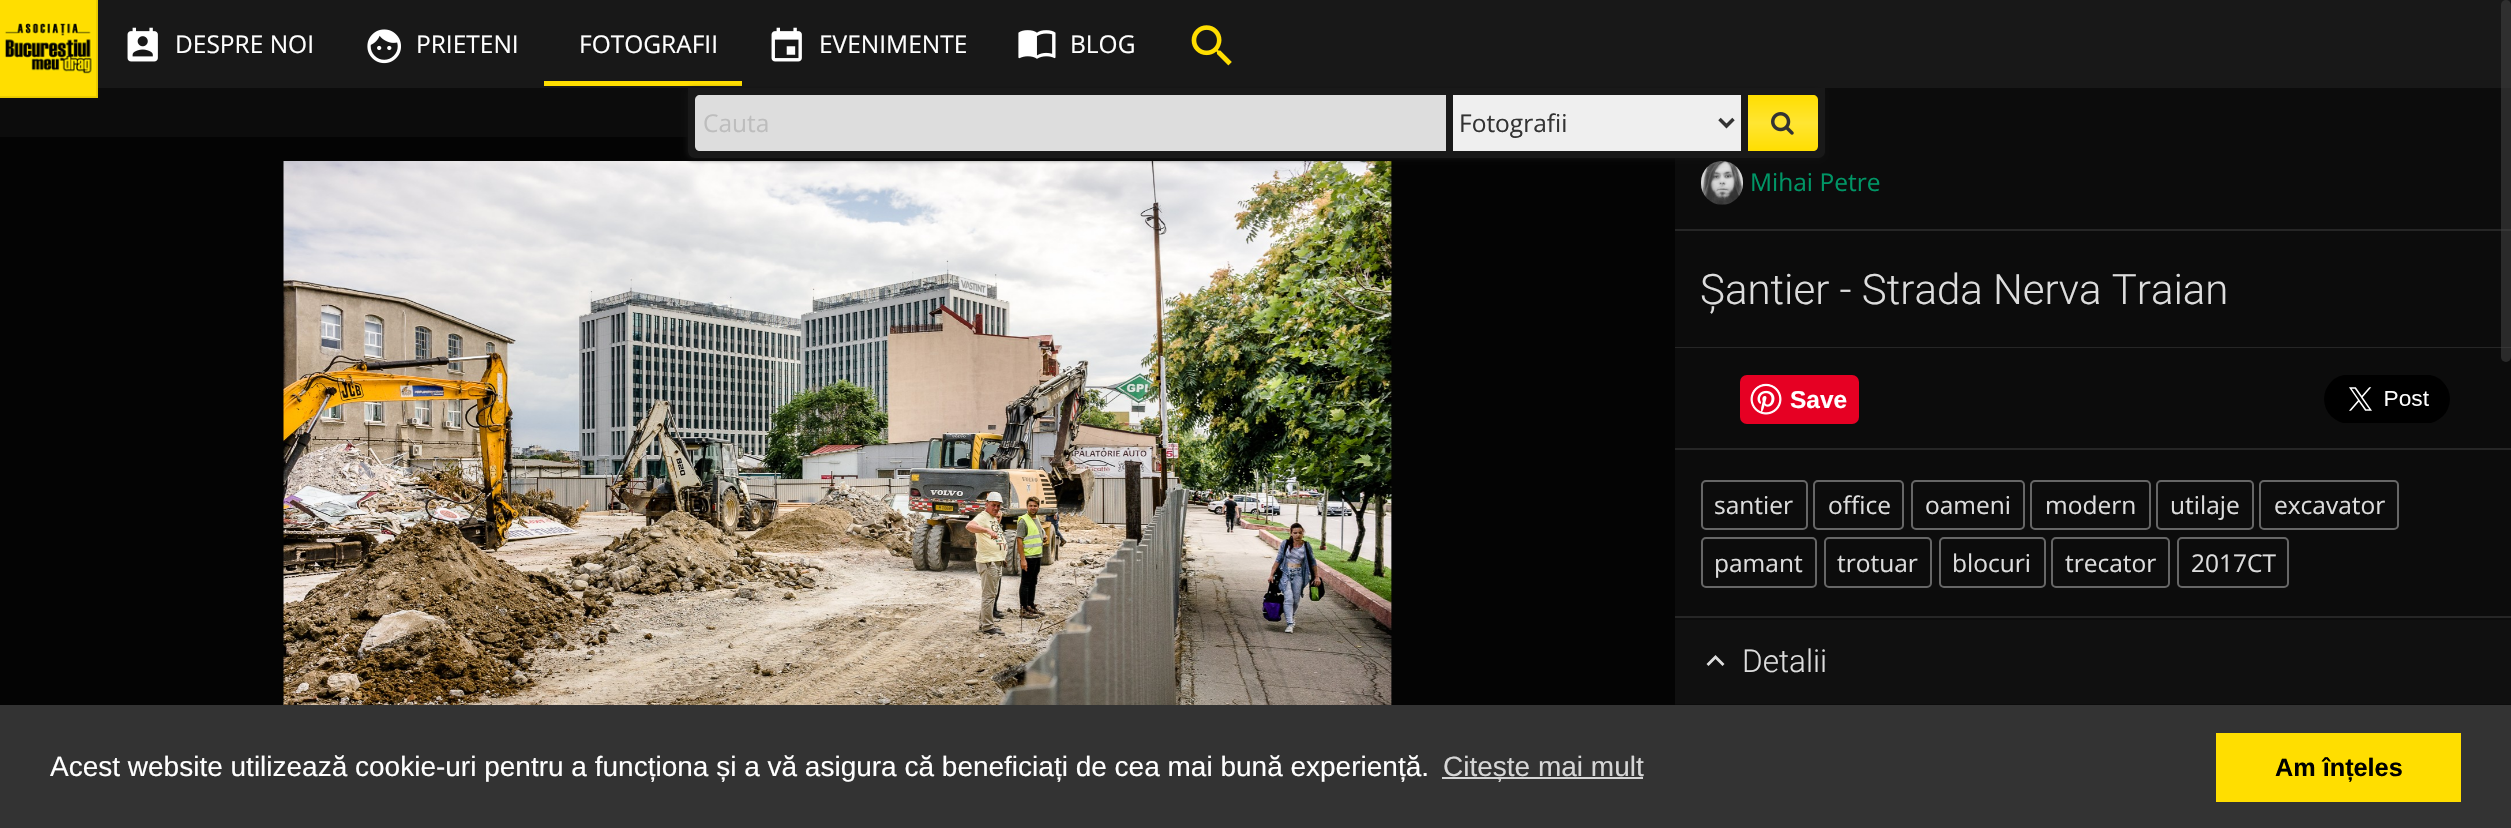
void draw(SkCanvas* c) {
SkPaint p;
p.setAntiAlias(true);
auto F=[&](const char* family, int weight, float size, bool italic = false){SkFontStyle style(weight, SkFontStyle::kNormal_Width,italic ? SkFontStyle::kItalic_Slant : SkFontStyle::kUpright_Slant);SkFont result(fontMgr->matchFamilyStyle(family, style), size);result.setSubpixel(true);return result;};
auto T=[&](const char* s, float x, float y, const SkFont& font){c->drawString(s, x, y, font, p);};
auto R=[&](float x, float y, float w, float h){c->drawRect(SkRect::MakeXYWH(x, y, w, h), p);};
auto Q=[&](float x, float y, float w, float h, float radius){c->drawRoundRect(SkRect::MakeXYWH(x, y, w, h), radius, radius, p);};
auto I=[&](const char* path, float x, float y, float w, float h){auto image = SkImages::DeferredFromEncodedData(SkData::MakeFromFileName(path));c->drawImageRect(image, SkRect::MakeXYWH(x, y, w, h), SkSamplingOptions());};
auto P=[&](const char* data, bool evenOdd = false){SkPath result = *SkParsePath::FromSVGString(data);if (evenOdd) result.setFillType(SkPathFillType::kEvenOdd);return result;};
c->clear(0xff0c0c0c);
p.setColor(0xff181818);
R(98,0,2413,88);
p.setColor(0xffe6c800);
R(96,0,2,98);
R(0,96,98,2);
I("1.png",0,0,97,97);
I("2.png",127,27,31,35);
auto f1 = F("Open Sans",400,24.5);
p.setColor(0xffffffff);
T("DESPRE NOI",175,53,f1);
I("3.png",367,29,34,35);
T("PRIETENI",416,53,f1);
p.setColor(0xffffde00);
R(544,81,198,5);
p.setColor(0xffffffff);
T("FOTOGRAFII",579,53,f1);
I("4.png",771,27,31,35);
T("EVENIMENTE",819,53,f1);
I("5.png",1018,30,38,29);
T("BLOG",1070,53,f1);
I("6.png",1191,25,41,41);
p.setColor(0xff040404);
R(0,137,1675,568);
I("8.png",283,161,1109,544);
I("9.png",1701,161,42,44);
c->save();
c->clipPath(P("M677 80h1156v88h-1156zm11 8h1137v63c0 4-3 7-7 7h-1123c-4 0-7-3-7-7z",true),true);
p.setColor(0xff111111);
p.setMaskFilter(SkMaskFilter::MakeBlur(kNormal_SkBlurStyle, 2.5));
c->drawRoundRect(SkRect::MakeXYWH(686,89,1138,70),7,7,p);
p.setMaskFilter(nullptr);
c->restore();
p.setColor(0xf2191919);
c->drawPath(P("M688 88h1137v63c0 4-3 7-7 7h-1123c-4 0-7-3-7-7z"),p);
p.setColor(0xffdddddd);
c->drawPath(P("M700 95h746v56h-746c-3 0-5-2-5-5v-46c0-3 2-5 5-5z"),p);
p.setColor(0xffbdbdbd);
T("Cauta",703,132,f1);
p.setColor(0xffefefef);
R(1453,95,288,56);
p.setStroke(true);
p.setStrokeWidth(3.5);
p.setColor(0xff333333);
c->drawPath(P("M1719.5 119l7 7l7-7"),p);
p.setStroke(false);
T("Fotografii",1459,132,f1);
{
const SkColor colors[] = {0xffffde00,0xffffe533,0xffffde00};
const float stops[] = {0,.5,1};
const SkPoint ends[] = {{1783,95}, {1783,151}};
p.setShader(SkGradientShader::MakeLinear(ends, colors, stops, 3, SkTileMode::kClamp));
p.setAlpha(255);
}
c->drawPath(P("M1748 95h65c3 0 5 2 5 5v46c0 3-2 5-5 5h-65z"),p);
I("7.png",1771,112,23,23);
p.setShader(nullptr);
p.setColor(0xff262626);
R(1675,229,836,2);
R(1675,347,836,1);
p.setColor(0x8c424242);
Q(2501,0,10,362,5);
p.setColor(0xff009666);
T("Mihai Petre",1750,191,f1);
auto f2 = F("Roboto",300,42);
p.setColor(0xffdddddd);
T("Șantier - Strada Nerva Traian",1700,304,f2);
p.setColor(0xffe60023);
Q(1740,375,119,49,7);
I("10.png",1750,383,32,32);
auto f3 = F("Liberation Sans",700,24.5);
p.setColor(0xffffffff);
T("Save",1790,408,f3);
I("11.png",2324,375,126,48);
p.setColor(0xff262626);
R(1675,448,836,2);
p.setStroke(true);
p.setStrokeWidth(2);
p.setColor(0xff666666);
c->drawRoundRect(SkRect::MakeXYWH(1702,481,105,48),4,4,p);
p.setStroke(false);
p.setColor(0xffdddddd);
T("santier",1714,514,f1);
p.setStroke(true);
p.setColor(0xff666666);
c->drawRoundRect(SkRect::MakeXYWH(1814,481,89,48),4,4,p);
p.setStroke(false);
p.setColor(0xffdddddd);
T("office",1828,514,f1);
p.setStroke(true);
p.setColor(0xff666666);
c->drawRoundRect(SkRect::MakeXYWH(1912,481,112,48),4,4,p);
p.setStroke(false);
p.setColor(0xffdddddd);
T("oameni",1925,514,f1);
p.setStroke(true);
p.setColor(0xff666666);
c->drawRoundRect(SkRect::MakeXYWH(2031,481,119,48),4,4,p);
p.setStroke(false);
p.setColor(0xffdddddd);
T("modern",2045,514,f1);
p.setStroke(true);
p.setColor(0xff666666);
c->drawRoundRect(SkRect::MakeXYWH(2157,481,96,48),4,4,p);
p.setStroke(false);
p.setColor(0xffdddddd);
T("utilaje",2170,514,f1);
p.setStroke(true);
p.setColor(0xff666666);
c->drawRoundRect(SkRect::MakeXYWH(2260,481,138,48),4,4,p);
p.setStroke(false);
p.setColor(0xffdddddd);
T("excavator",2274,514,f1);
p.setStroke(true);
p.setColor(0xff666666);
c->drawRoundRect(SkRect::MakeXYWH(1702,538,114,49),4,4,p);
p.setStroke(false);
p.setColor(0xffdddddd);
T("pamant",1714,572,f1);
p.setStroke(true);
p.setColor(0xff666666);
c->drawRoundRect(SkRect::MakeXYWH(1825,538,106,49),4,4,p);
p.setStroke(false);
p.setColor(0xffdddddd);
T("trotuar",1837,572,f1);
p.setStroke(true);
p.setColor(0xff666666);
c->drawRoundRect(SkRect::MakeXYWH(1940,538,105,49),4,4,p);
p.setStroke(false);
p.setColor(0xffdddddd);
T("blocuri",1952,572,f1);
p.setStroke(true);
p.setColor(0xff666666);
c->drawRoundRect(SkRect::MakeXYWH(2052,538,117,49),4,4,p);
p.setStroke(false);
p.setColor(0xffdddddd);
T("trecator",2065,572,f1);
p.setStroke(true);
p.setColor(0xff666666);
c->drawRoundRect(SkRect::MakeXYWH(2178,538,110,49),4,4,p);
p.setStroke(false);
p.setColor(0xffdddddd);
T("2017CT",2191,572,f1);
p.setColor(0xff262626);
R(1675,616,836,2);
p.setColor(0xff101010);
R(1675,620,836,84);
p.setColor(0xffdddddd);
c->drawPath(P("M1708.5 666l-2-2l9-9l9 9l-2 2l-7-7z"),p);
auto f4 = F("Roboto",300,31.5);
T("Detalii",1742,672,f4);
p.setColor(0xff333333);
R(0,705,2511,123);
auto f5 = F("Liberation Sans",400,28);
p.setColor(0xffffffff);
T("Acest website utilizează cookie-uri pentru a funcționa și a vă asigura că beneficiați de cea mai bună experiență.",50,776,f5);
p.setColor(0xffd6d6d6);
R(1442,777,201,2);
T("Citește mai mult",1443,776,f5);
p.setColor(0xffffde00);
R(2216,733,245,69);
auto f6 = F("Liberation Sans",700,25.25);
p.setColor(0xff000000);
T("Am înțeles",2275,776,f6);
}
